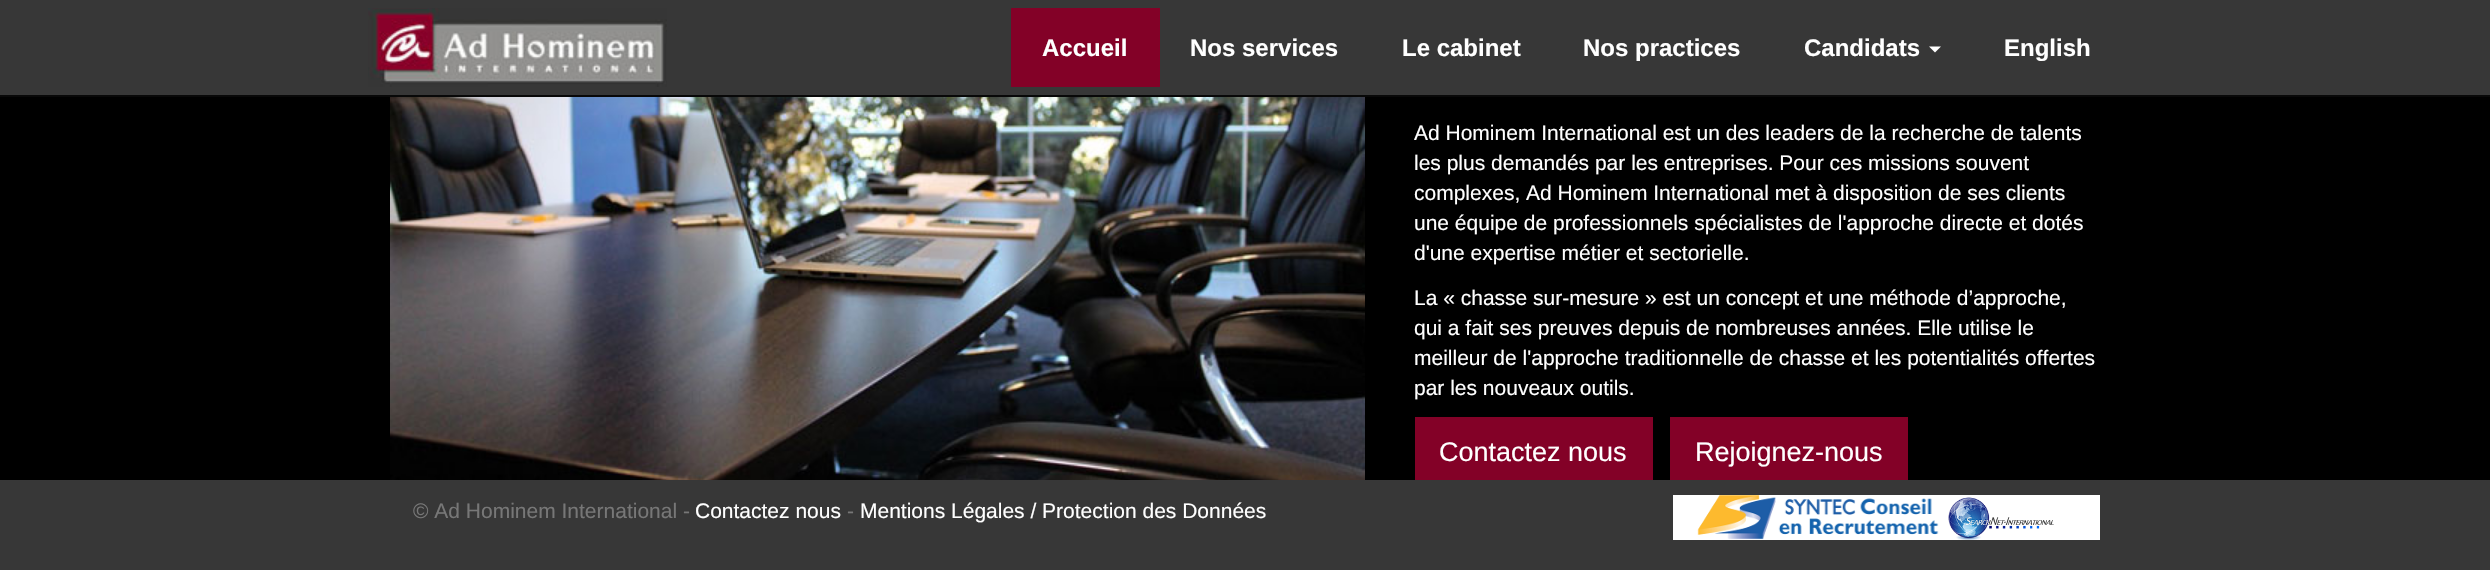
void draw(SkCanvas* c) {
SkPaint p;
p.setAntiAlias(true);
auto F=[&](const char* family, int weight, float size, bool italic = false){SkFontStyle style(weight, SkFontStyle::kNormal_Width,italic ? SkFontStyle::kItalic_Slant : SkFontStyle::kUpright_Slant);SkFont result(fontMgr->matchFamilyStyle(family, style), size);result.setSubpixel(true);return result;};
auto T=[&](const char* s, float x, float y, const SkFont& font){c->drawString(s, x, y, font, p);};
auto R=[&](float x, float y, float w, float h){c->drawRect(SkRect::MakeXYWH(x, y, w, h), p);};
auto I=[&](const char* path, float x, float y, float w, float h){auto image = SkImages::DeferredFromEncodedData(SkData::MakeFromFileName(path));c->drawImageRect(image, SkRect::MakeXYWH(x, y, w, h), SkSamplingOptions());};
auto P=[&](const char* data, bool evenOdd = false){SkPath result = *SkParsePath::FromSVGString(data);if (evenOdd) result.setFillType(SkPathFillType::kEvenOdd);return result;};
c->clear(0xff000000);
p.setColor(0xff373737);
R(0,0,2490,95);
p.setColor(0xff080808);
R(0,95,2490,2);
I("1.png",368,8,299,79);
p.setColor(0xff830127);
R(1011,8,149,79);
auto f1 = F("Liberation Sans",700,24);
p.setColor(0xffffffff);
T("Accueil",1042,56,f1);
T("Nos services",1190,56,f1);
T("Le cabinet",1402,56,f1);
T("Nos practices",1583,56,f1);
T("Candidats",1804,56,f1);
c->drawPath(P("M1929 46.5h12l-6 6z"),p);
T("English",2004,56,f1);
I("2.png",390,97,975,383);
auto f2 = F("Liberation Sans",400,21);
T("Ad Hominem International est un des leaders de la recherche de talents",1414,140,f2);
T("les plus demandés par les entreprises. Pour ces missions souvent",1414,170,f2);
T("complexes, Ad Hominem International met à disposition de ses clients",1414,200,f2);
T("une équipe de professionnels spécialistes de l'approche directe et dotés",1414,230,f2);
T("d'une expertise métier et sectorielle.",1414,260,f2);
T("La « chasse sur-mesure » est un concept et une méthode d’approche,",1414,305,f2);
T("qui a fait ses preuves depuis de nombreuses années. Elle utilise le",1414,335,f2);
T("meilleur de l'approche traditionnelle de chasse et les potentialités offertes",1414,365,f2);
T("par les nouveaux outils.",1414,395,f2);
p.setColor(0xff830127);
R(1415,417,238,63);
auto f3 = F("Liberation Sans",400,27);
p.setColor(0xffffffff);
T("Contactez nous",1439,461,f3);
p.setColor(0xff830127);
R(1670,417,238,63);
p.setColor(0xffffffff);
T("Rejoignez-nous",1695,461,f3);
p.setColor(0xff373737);
R(0,480,2490,90);
p.setColor(0xff777777);
T("© Ad Hominem International -",413,518,f2);
p.setColor(0xffffffff);
T("Contactez nous",695,518,f2);
p.setColor(0xff777777);
T("-",847,518,f2);
p.setColor(0xffffffff);
T("Mentions Légales / Protection des Données",860,518,f2);
R(1673,495,427,45);
I("3.png",1697,495,242,45);
I("4.png",1948,497,106,43);
}
